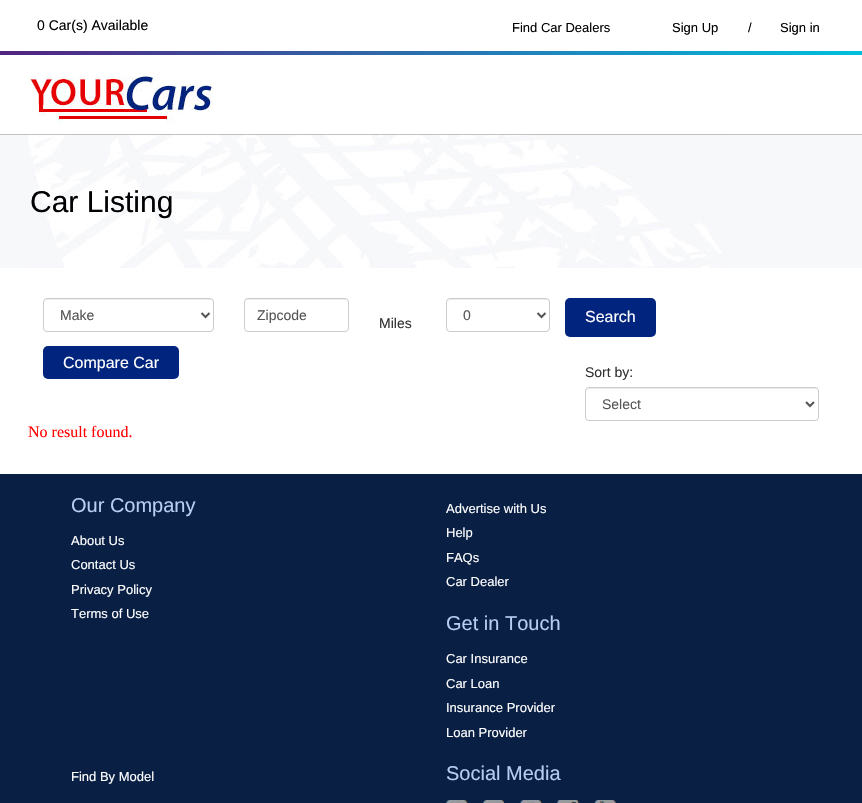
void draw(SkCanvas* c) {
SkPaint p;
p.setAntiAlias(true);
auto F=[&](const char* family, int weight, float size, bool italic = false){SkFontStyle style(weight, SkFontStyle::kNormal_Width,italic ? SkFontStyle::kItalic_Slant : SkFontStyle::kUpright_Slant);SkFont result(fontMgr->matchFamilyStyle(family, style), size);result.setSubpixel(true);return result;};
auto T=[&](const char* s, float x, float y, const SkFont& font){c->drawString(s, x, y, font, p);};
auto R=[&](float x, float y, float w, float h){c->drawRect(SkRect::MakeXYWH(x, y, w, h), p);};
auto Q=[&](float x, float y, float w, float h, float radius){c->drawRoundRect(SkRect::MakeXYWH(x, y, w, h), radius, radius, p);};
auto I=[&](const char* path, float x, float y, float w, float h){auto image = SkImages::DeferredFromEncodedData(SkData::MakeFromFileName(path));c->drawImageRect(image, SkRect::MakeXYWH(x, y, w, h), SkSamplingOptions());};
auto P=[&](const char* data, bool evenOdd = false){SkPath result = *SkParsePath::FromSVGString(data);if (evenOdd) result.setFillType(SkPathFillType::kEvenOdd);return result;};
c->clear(0xffffffff);
auto f1 = F("Liberation Sans",400,14);
p.setColor(0xff010103);
T("0 Car(s) Available",37,30,f1);
auto f2 = F("Liberation Sans",400,13);
T("Find Car Dealers",512,32,f2);
T("Sign Up",672,32,f2);
T("/",748,32,f2);
T("Sign in",780,32,f2);
{
const SkColor colors[] = {0xff00bfde,0xff532380};
const float stops[] = {0,1};
const SkPoint ends[] = {{862,53}, {0,53}};
p.setShader(SkGradientShader::MakeLinear(ends, colors, stops, 2, SkTileMode::kClamp));
p.setAlpha(255);
}
R(0,51,862,4);
I("1.png",30,76,184,48);
p.setShader(nullptr);
p.setColor(0xfff7f8fa);
R(0,135,862,133);
I("2.png",28,135,694,133);
p.setColor(0xffc1c2c4);
R(0,134,862,1);
auto f3 = F("Liberation Sans",400,30);
p.setColor(0xff010103);
T("Car Listing",30,212,f3);
p.setColor(0xffececec);
c->drawPath(P("M47 300h163c2 0 3 1 3 3v-1c0-2-1-3-3-3h-163c-2 0-3 1-3 3v1c0-2 1-3 3-3z"),p);
p.setStroke(true);
p.setStrokeWidth(1);
p.setColor(0xffcccccc);
c->drawRoundRect(SkRect::MakeXYWH(43.5,298.5,170,33),3.5,3.5,p);
p.setStrokeWidth(2);
p.setColor(0xff555555);
c->drawPath(P("M201.5 313l4 4l4-4"),p);
p.setStroke(false);
T("Make",60,320,f1);
p.setColor(0xffececec);
c->drawPath(P("M248 300h97c2 0 3 1 3 3c0-8-16-4-19-4h-65c-3 0-19-4-19 4c0-2 1-3 3-3z"),p);
p.setStroke(true);
p.setStrokeWidth(1);
p.setColor(0xffcccccc);
c->drawRoundRect(SkRect::MakeXYWH(244.5,298.5,104,33),3.5,3.5,p);
p.setStroke(false);
p.setColor(0xff555555);
T("Zipcode",257,320,f1);
p.setColor(0xff333333);
T("Miles",379,328,f1);
p.setColor(0xffececec);
c->drawPath(P("M450 300h96c2 0 3 1 3 3c0-8-16-4-19-4h-64c-3 0-19-4-19 4c0-2 1-3 3-3z"),p);
p.setStroke(true);
p.setColor(0xffcccccc);
c->drawRoundRect(SkRect::MakeXYWH(446.5,298.5,103,33),3.5,3.5,p);
p.setStrokeWidth(2);
p.setColor(0xff555555);
c->drawPath(P("M537.5 313l4 4l4-4"),p);
p.setStroke(false);
T("0",463,320,f1);
p.setColor(0xff01247e);
Q(565,298,91,39,5);
auto f4 = F("Liberation Sans",400,16);
p.setColor(0xffffffff);
T("Search",585,322,f4);
p.setColor(0xff01247e);
Q(43,346,136,33,5);
p.setColor(0xffffffff);
T("Compare Car",63,368,f4);
p.setColor(0xff333333);
T("Sort by:",585,377,f1);
p.setColor(0xffececec);
c->drawPath(P("M589 389h226c2 0 3 1 3 3c0-2-1-4-3-4h-226c-2 0-3 2-3 4c0-2 1-3 3-3z"),p);
p.setStroke(true);
p.setStrokeWidth(1);
p.setColor(0xffcccccc);
c->drawRoundRect(SkRect::MakeXYWH(585.5,387.5,233,33),3.5,3.5,p);
p.setStrokeWidth(2);
p.setColor(0xff555555);
c->drawPath(P("M806 402l4 4l4-4"),p);
p.setStroke(false);
T("Select",602,409,f1);
auto f5 = F("Liberation Serif",400,16);
p.setColor(0xffff0000);
T("No result found.",28,437,f5);
p.setColor(0xff091f44);
R(0,474,862,329);
auto f6 = F("Liberation Sans",400,20);
p.setColor(0xffb7cdf2);
T("Our Company",71,512,f6);
p.setColor(0xffffffff);
T("About Us",71,545,f2);
T("Contact Us",71,569,f2);
T("Privacy Policy",71,594,f2);
T("Terms of Use",71,618,f2);
T("Advertise with Us",446,513,f2);
T("Help",446,537,f2);
T("FAQs",446,562,f2);
T("Car Dealer",446,586,f2);
p.setColor(0xffb7cdf2);
T("Get in Touch",446,630,f6);
p.setColor(0xffffffff);
T("Car Insurance",446,663,f2);
T("Car Loan",446,688,f2);
T("Insurance Provider",446,712,f2);
T("Loan Provider",446,737,f2);
T("Find By Model",71,781,f2);
p.setColor(0xffb7cdf2);
T("Social Media",446,780,f6);
I("3.png",446,800,22,3);
I("4.png",483,800,21,3);
I("5.png",520,800,22,3);
I("6.png",557,800,22,3);
I("7.png",594,800,22,3);
}
